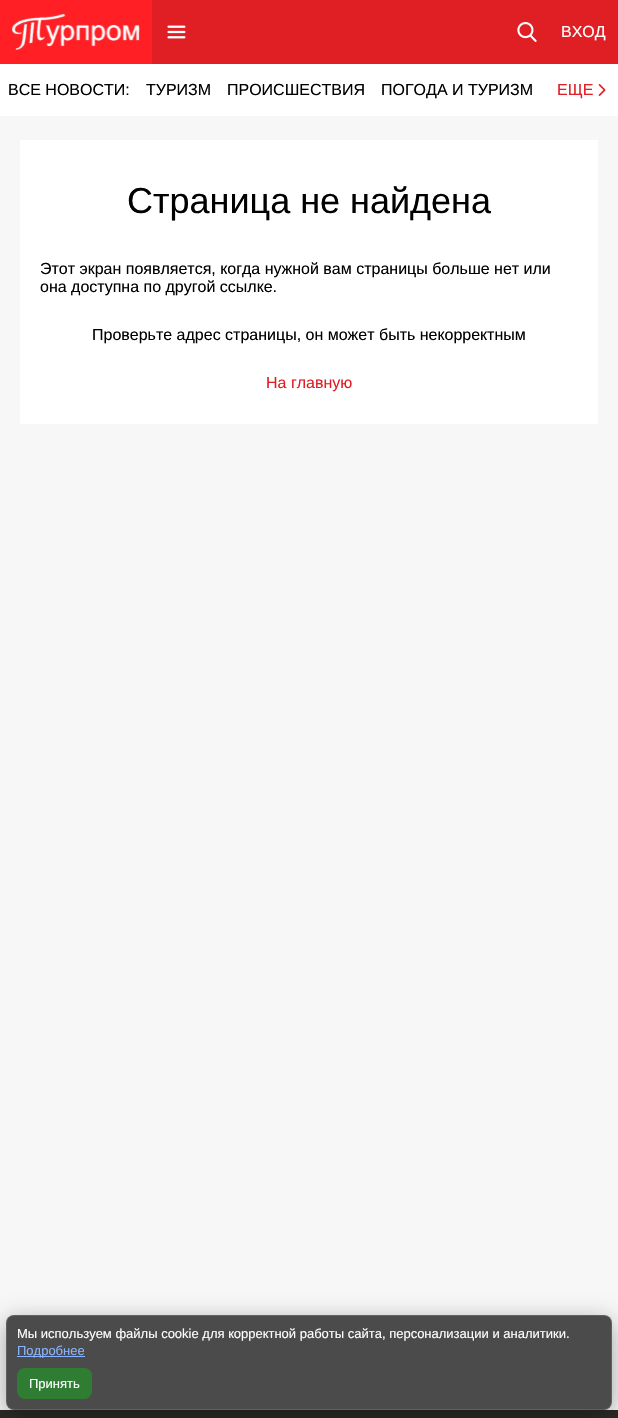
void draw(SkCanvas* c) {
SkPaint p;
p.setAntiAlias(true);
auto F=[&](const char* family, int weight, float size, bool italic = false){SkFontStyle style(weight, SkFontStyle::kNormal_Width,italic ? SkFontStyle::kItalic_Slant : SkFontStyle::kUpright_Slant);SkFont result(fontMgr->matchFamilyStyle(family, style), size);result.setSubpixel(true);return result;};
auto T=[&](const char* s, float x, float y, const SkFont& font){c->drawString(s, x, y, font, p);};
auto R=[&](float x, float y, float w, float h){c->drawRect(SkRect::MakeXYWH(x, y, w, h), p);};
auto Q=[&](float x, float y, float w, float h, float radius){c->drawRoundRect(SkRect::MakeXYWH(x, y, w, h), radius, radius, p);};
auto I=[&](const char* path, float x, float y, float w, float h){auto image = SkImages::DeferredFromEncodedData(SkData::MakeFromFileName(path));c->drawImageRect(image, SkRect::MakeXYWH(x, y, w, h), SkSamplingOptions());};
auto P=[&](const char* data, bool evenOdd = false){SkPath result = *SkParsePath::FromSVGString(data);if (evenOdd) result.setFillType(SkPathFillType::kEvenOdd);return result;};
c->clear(0xfff7f7f7);
p.setColor(0xffe01f25);
R(152,0,466,64);
p.setColor(0xffff1f25);
R(0,0,152,64);
I("1.png",12,14,128,36);
I("2.png",167,25,19,14);
I("3.png",517,22,20,20);
auto f1 = F("Liberation Sans",400,16);
p.setColor(0xffffffff);
T("ВХОД",561,37,f1);
R(0,64,618,52);
p.setColor(0xff000000);
T("ВСЕ НОВОСТИ:",8,95,f1);
T("ТУРИЗМ",146,95,f1);
T("ПРОИСШЕСТВИЯ",227,95,f1);
T("ПОГОДА И ТУРИЗМ",381,95,f1);
p.setColor(0xffe01f25);
T("ЕЩЕ",557,95,f1);
I("4.png",598,84,8,12);
p.setColor(0xffffffff);
R(20,140,578,284);
auto f2 = F("Liberation Sans",400,36);
p.setColor(0xff000000);
T("Страница не найдена",127,213,f2);
T("Этот экран появляется, когда нужной вам страницы больше нет или",40,274,f1);
T("она доступна по другой ссылке.",40,292,f1);
T("Проверьте адрес страницы, он может быть некорректным",92,340,f1);
p.setColor(0xffe01f25);
T("На главную",266,388,f1);
p.setColor(0xff2b2a28);
R(0,1410,618,8);
c->save();
c->clipPath(P("M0 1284h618v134h-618zm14 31h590c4.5 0 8 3.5 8 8v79c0 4.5-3.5 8-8 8h-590c-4.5 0-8-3.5-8-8v-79c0-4.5 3.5-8 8-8z",true),true);
p.setColor(0x59000000);
p.setMaskFilter(SkMaskFilter::MakeBlur(kNormal_SkBlurStyle, 12));
c->drawRoundRect(SkRect::MakeXYWH(6,1321,606,95),8,8,p);
p.setMaskFilter(nullptr);
c->restore();
p.setColor(0xbf111111);
Q(6,1315,606,95,8);
p.setStroke(true);
p.setStrokeWidth(1);
p.setColor(0x1fffffff);
c->drawRoundRect(SkRect::MakeXYWH(6.5,1315.5,605,94),7.5,7.5,p);
auto f3 = F("Liberation Sans",400,13);
p.setStroke(false);
p.setColor(0xffffffff);
T("Мы используем файлы cookie для корректной работы сайта, персонализации и аналитики.",17,1338,f3);
p.setColor(0xff8ab4ff);
R(17,1356,68,1);
T("Подробнее",17,1355,f3);
p.setColor(0xff2e7d32);
Q(17,1368,75,31,8);
p.setColor(0xffffffff);
T("Принять",29,1388,f3);
}
